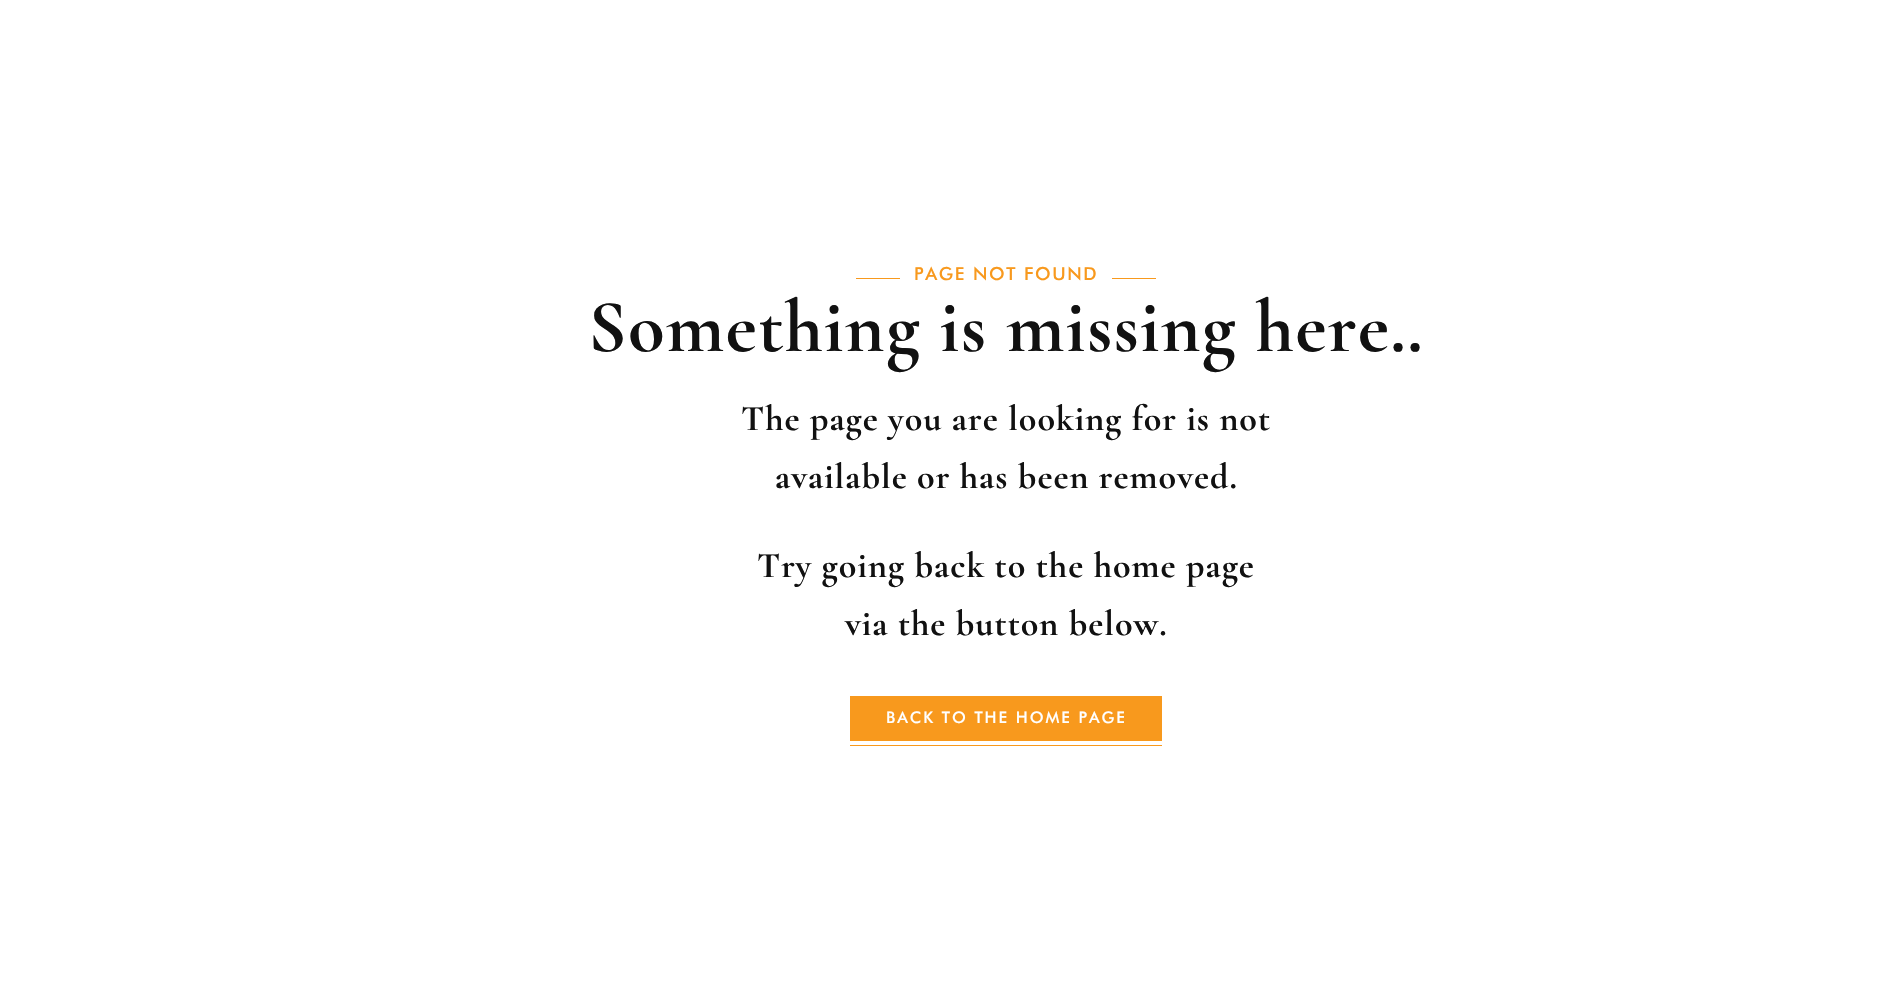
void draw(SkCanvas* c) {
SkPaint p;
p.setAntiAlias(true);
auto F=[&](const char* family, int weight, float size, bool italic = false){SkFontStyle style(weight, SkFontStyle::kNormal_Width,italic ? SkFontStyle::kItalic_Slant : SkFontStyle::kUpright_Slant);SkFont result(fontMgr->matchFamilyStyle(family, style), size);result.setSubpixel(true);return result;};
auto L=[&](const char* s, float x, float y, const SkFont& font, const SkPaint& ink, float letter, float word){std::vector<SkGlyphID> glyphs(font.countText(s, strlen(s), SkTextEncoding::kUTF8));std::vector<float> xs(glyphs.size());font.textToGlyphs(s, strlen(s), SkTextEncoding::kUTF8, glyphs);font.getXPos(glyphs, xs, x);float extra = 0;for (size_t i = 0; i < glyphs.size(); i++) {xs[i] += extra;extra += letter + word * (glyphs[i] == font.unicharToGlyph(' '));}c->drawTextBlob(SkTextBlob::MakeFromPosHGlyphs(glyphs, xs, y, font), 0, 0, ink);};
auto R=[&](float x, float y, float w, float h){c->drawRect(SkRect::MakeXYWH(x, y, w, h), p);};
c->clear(0xffffffff);
p.setColor(0xfff8991d);
R(856,278,44,1);
auto f1 = F("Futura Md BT",500,18);
L("PAGE NOT FOUND",914,280,f1,p,1.6,0);
R(1112,278,44,1);
auto f2 = F("Cormorant Garamond",700,75);
p.setColor(0xff111111);
L("Something is missing here..",588,351,f2,p,1.3,0);
auto f3 = F("Cormorant Garamond",700,36);
L("The page you are looking for is not",741,430,f3,p,1,0);
L("available or has been removed.",775,488,f3,p,1,0);
L("Try going back to the home page",757,577,f3,p,1,0);
L("via the button below.",845,635,f3,p,1,0);
p.setColor(0xfff8991d);
R(850,696,312,45);
auto f4 = F("Futura Md BT",500,16);
p.setColor(0xffffffff);
L("BACK TO THE HOME PAGE",886,723,f4,p,1.95,0);
p.setColor(0xfff8991d);
R(850,745,312,1);
}
